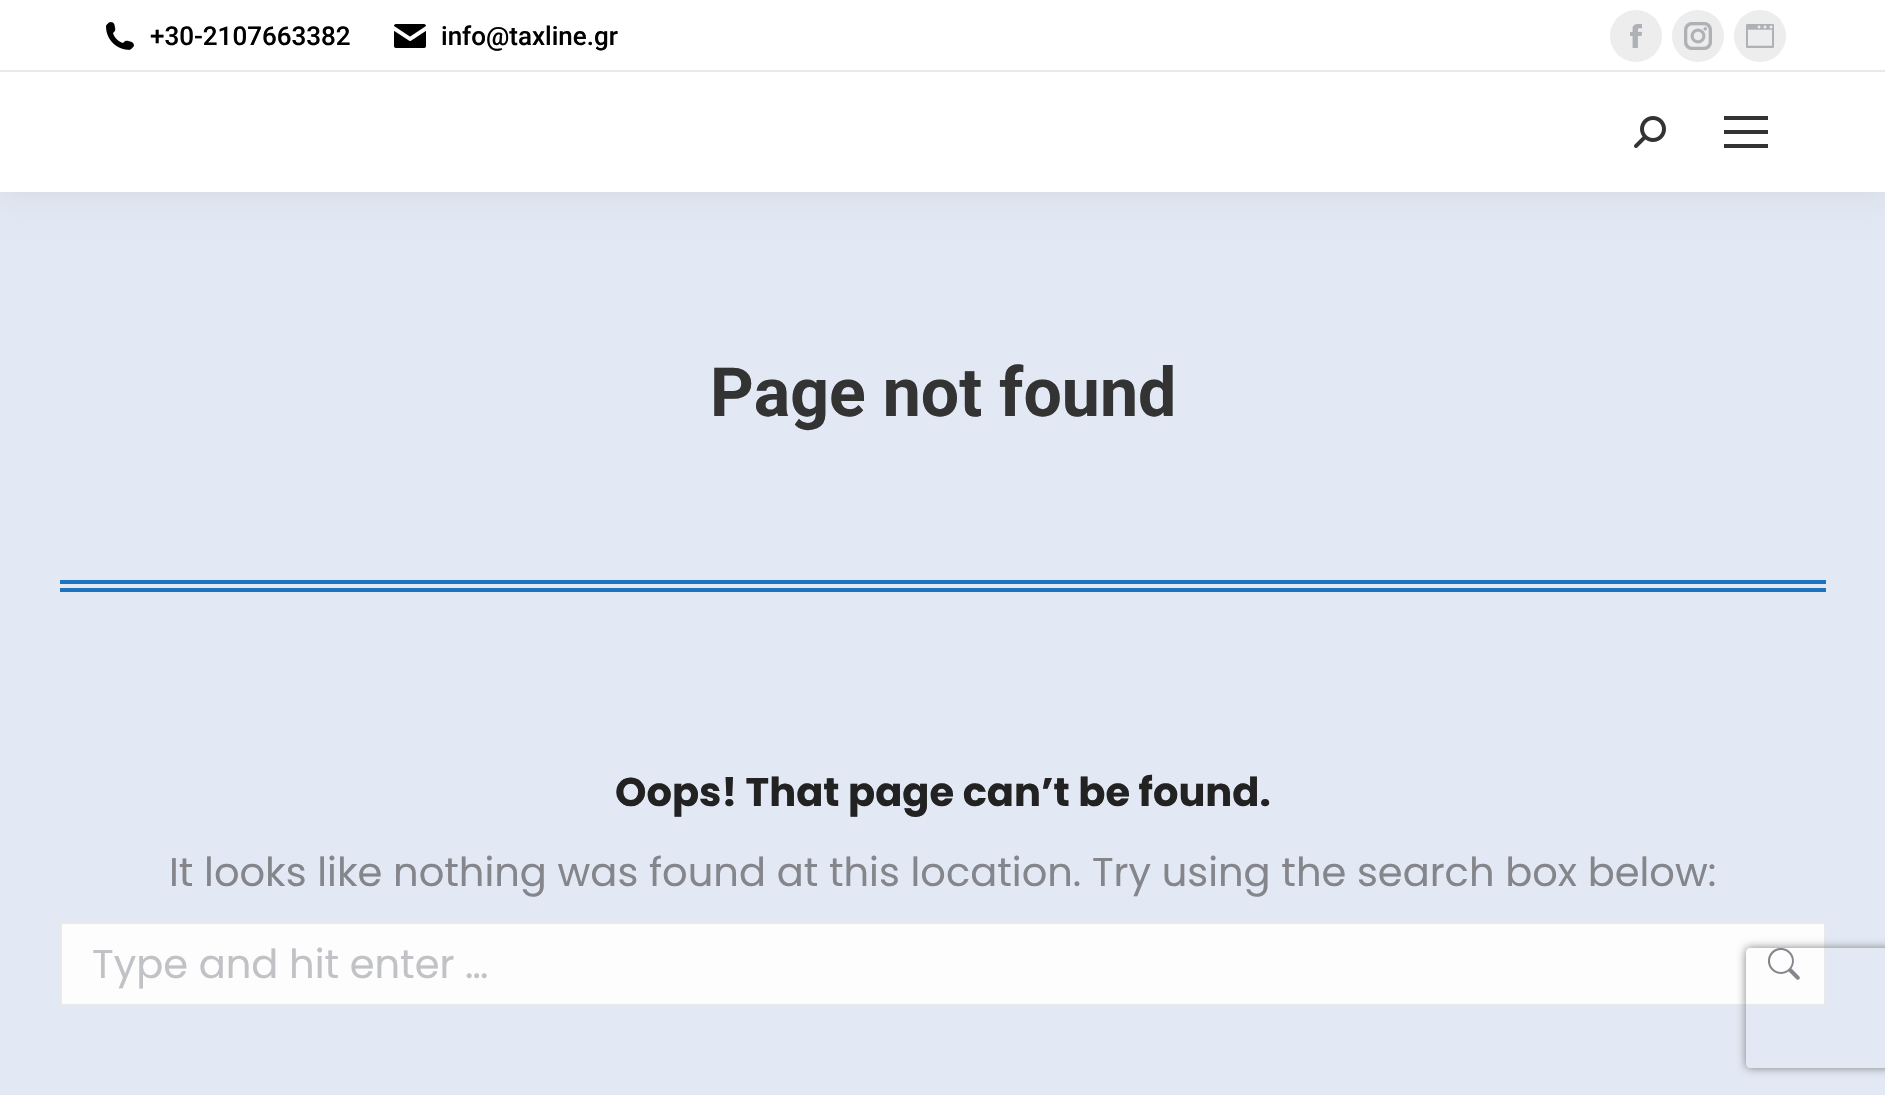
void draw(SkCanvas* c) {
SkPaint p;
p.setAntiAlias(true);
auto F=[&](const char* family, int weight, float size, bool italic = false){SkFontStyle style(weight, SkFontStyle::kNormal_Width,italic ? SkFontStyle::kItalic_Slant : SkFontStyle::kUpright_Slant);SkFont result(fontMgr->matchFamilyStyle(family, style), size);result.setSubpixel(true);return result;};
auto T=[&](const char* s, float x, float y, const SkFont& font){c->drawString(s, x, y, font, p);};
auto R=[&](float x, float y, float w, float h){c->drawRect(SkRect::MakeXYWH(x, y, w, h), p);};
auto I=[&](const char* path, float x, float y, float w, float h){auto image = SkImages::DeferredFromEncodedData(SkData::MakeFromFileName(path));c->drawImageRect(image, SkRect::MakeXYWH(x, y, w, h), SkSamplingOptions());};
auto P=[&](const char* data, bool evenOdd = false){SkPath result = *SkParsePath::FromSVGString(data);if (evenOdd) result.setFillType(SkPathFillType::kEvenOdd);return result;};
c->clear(0xffe3e9f4);
p.setColor(0x12000000);
p.setMaskFilter(SkMaskFilter::MakeBlur(kNormal_SkBlurStyle, 15));
c->drawRect(SkRect::MakeXYWH(-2,-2,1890,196),p);
p.setMaskFilter(nullptr);
p.setColor(0xffffffff);
R(0,0,1885,192);
I("1.png",106,22,28,28);
auto f1 = F("Roboto",500,26);
p.setColor(0xff000000);
T("+30-2107663382",150,45,f1);
I("2.png",394,24,32,24);
T("info@taxline.gr",441,45,f1);
p.setColor(0xffededed);
c->drawCircle(1636,36,26,p);
I("3.png",1630,24,12,24);
c->drawCircle(1698,36,26,p);
I("4.png",1684,22,28,28);
c->drawCircle(1760,36,26,p);
I("5.png",1746,24,28,24);
p.setColor(0xffe9e9e9);
R(0,70,1885,2);
I("6.png",1634,116,32,32);
p.setColor(0xff333333);
R(1724,116,44,4);
R(1724,130,44,4);
R(1724,144,44,4);
auto f2 = F("Roboto",700,68);
T("Page not found",710,416,f2);
p.setColor(0xff1e73be);
R(60,580,1766,4);
R(60,588,1766,4);
auto f3 = F("Poppins",700,40);
p.setColor(0xff222222);
T("Oops! That page can’t be found.",615,806,f3);
auto f4 = F("Poppins",400,40);
p.setColor(0xff85868c);
T("It looks like nothing was found at this location. Try using the search box below:",169,886,f4);
p.setColor(0xfffdfdfd);
c->drawRect(SkRect::MakeXYWH(61,923,1764,82),p);
p.setStroke(true);
p.setStrokeWidth(2);
p.setColor(0xffe9e9e9);
c->drawRect(SkRect::MakeXYWH(61,923,1764,82),p);
p.setStroke(false);
p.setColor(0xffc1c2c5);
T("Type and hit enter …",92,978,f4);
I("7.png",1768,948,32,32);
c->save();
c->clipPath(P("M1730 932h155v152h-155zm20 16h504c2 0 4 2 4 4v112c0 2-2 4-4 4h-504c-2 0-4-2-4-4v-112c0-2 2-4 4-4z",true),true);
p.setColor(0xff808080);
p.setMaskFilter(SkMaskFilter::MakeBlur(kNormal_SkBlurStyle, 5));
c->drawRoundRect(SkRect::MakeXYWH(1746,948,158,120),4,4,p);
p.setMaskFilter(nullptr);
c->restore();
}
